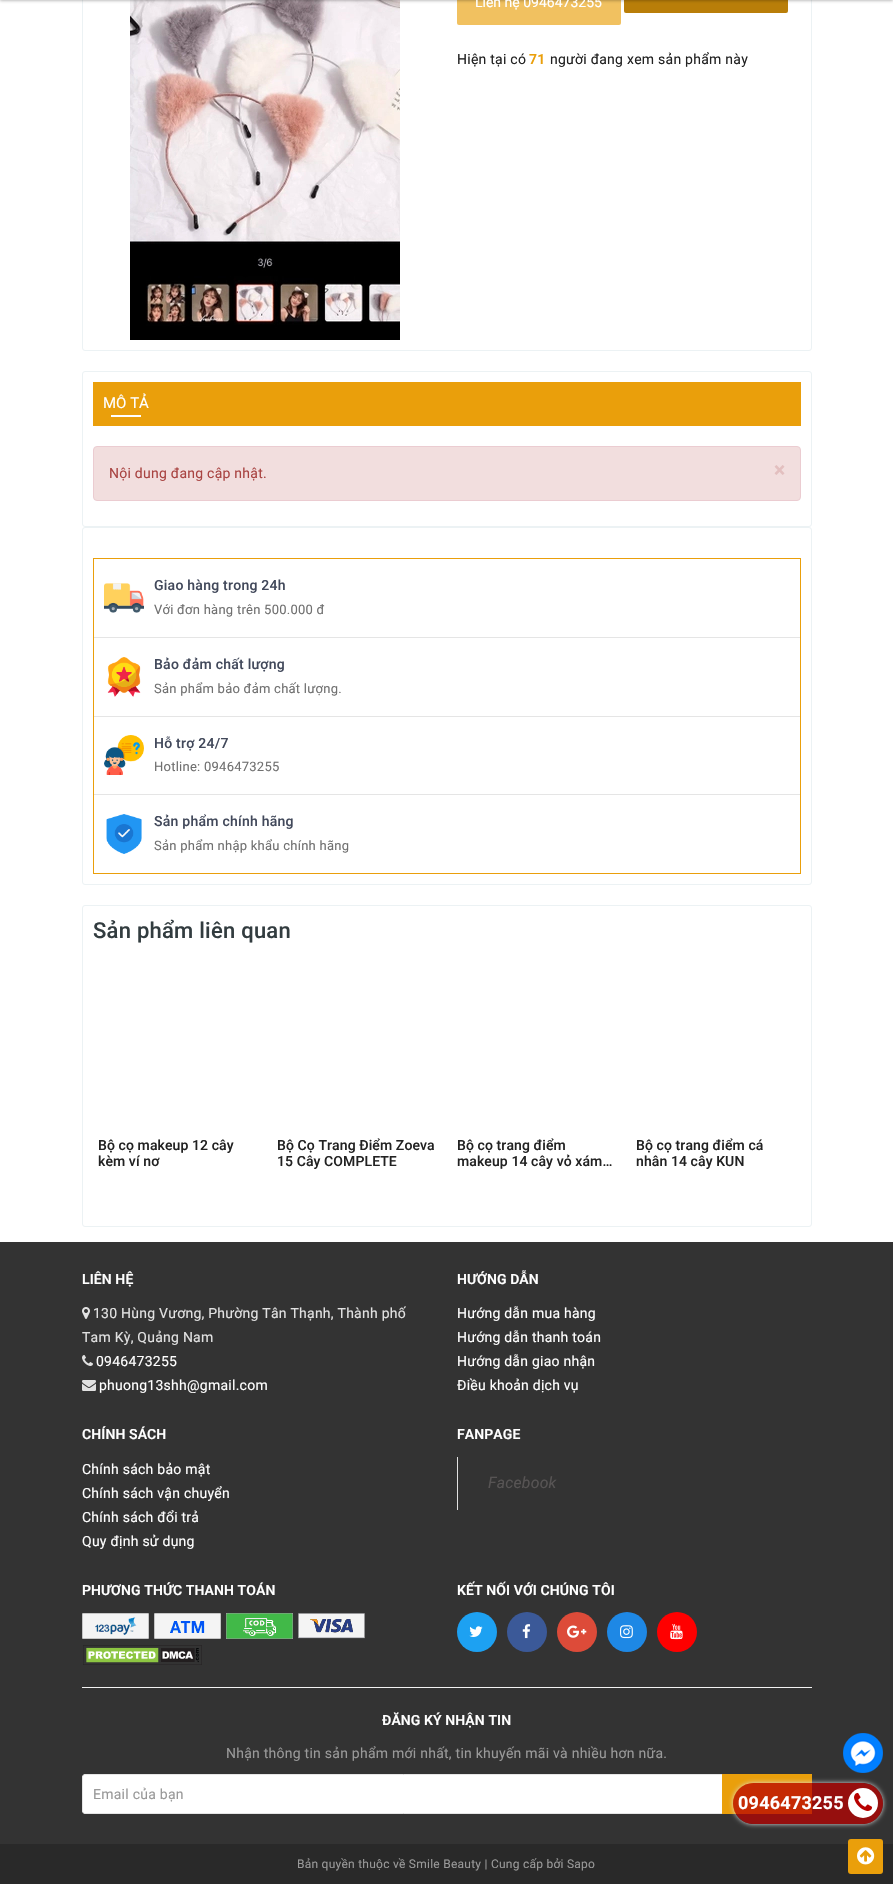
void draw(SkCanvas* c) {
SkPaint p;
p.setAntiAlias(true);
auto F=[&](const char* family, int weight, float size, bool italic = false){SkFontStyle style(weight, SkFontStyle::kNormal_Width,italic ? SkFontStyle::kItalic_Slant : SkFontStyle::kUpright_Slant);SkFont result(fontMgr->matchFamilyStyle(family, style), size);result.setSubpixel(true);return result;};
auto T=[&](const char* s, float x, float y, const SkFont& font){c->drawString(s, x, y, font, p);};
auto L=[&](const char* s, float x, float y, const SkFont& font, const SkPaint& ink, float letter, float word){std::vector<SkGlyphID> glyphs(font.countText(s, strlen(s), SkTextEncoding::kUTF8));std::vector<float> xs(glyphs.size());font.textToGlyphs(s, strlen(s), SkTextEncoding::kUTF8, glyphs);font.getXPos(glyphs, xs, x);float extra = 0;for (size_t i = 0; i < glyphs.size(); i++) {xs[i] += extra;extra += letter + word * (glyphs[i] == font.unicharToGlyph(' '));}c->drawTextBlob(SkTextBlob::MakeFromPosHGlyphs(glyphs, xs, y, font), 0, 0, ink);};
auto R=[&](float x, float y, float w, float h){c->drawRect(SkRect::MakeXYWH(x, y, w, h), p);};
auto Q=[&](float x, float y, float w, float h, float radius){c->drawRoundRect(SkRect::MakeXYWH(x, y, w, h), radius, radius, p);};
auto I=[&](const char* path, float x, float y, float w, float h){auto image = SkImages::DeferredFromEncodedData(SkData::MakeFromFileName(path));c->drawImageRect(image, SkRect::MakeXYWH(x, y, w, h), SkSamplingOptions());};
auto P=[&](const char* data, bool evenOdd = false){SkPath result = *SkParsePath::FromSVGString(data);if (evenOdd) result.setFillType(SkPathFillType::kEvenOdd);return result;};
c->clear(0xffffffff);
p.setStroke(true);
p.setStrokeWidth(1);
p.setColor(0xffecf2f4);
c->drawRoundRect(SkRect::MakeXYWH(82.5,-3.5,729,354),2.5,2.5,p);
I("1.png",130,0,270,340);
p.setStroke(false);
p.setColor(0xfff1c160);
Q(457,-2,164,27,2);
p.setColor(0xffb97e09);
Q(624,-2,164,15,2);
p.setColor(0x40000000);
p.setMaskFilter(SkMaskFilter::MakeBlur(kNormal_SkBlurStyle, 1.5));
c->drawRect(SkRect::MakeXYWH(0,-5,893,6),p);
p.setMaskFilter(nullptr);
auto f1 = F("Roboto",400,14);
p.setColor(0xffffffff);
T("Liên hệ 0946473255",475,7,f1);
p.setColor(0xff222222);
L("Hiện tại có",457,64,f1,p,.25,0);
auto f2 = F("Roboto",600,14);
p.setColor(0xffea9f0b);
L("71",529,64,f2,p,.25,0);
p.setColor(0xff222222);
L("người đang xem sản phẩm này",550,64,f1,p,.25,0);
p.setStroke(true);
p.setColor(0xffecf2f4);
c->drawRoundRect(SkRect::MakeXYWH(82.5,371.5,729,155),2.5,2.5,p);
p.setStroke(false);
p.setColor(0xffea9f0b);
R(93,382,708,44);
auto f3 = F("Roboto",400,15);
p.setColor(0xffffffff);
T("MÔ TẢ",103,408,f3);
R(111,415,30,2);
p.setColor(0xfff2dede);
c->drawRoundRect(SkRect::MakeXYWH(93.5,446.5,707,54),3.5,3.5,p);
p.setStroke(true);
p.setColor(0xffebccd1);
c->drawRoundRect(SkRect::MakeXYWH(93.5,446.5,707,54),3.5,3.5,p);
p.setStroke(false);
p.setColor(0xffa94442);
L("Nội dung đang cập nhật.",109,478,f1,p,.25,0);
auto f4 = F("Roboto",700,21);
p.setColor(0xffe3bfbf);
L("×",774,477,f4,p,.25,0);
p.setStroke(true);
p.setColor(0xffecf2f4);
c->drawRoundRect(SkRect::MakeXYWH(82.5,527.5,729,357),2.5,2.5,p);
p.setColor(0xffea9f0b);
c->drawRect(SkRect::MakeXYWH(93.5,558.5,707,315),p);
p.setStroke(false);
p.setColor(0xffe5e5e5);
R(94,637,706,1);
I("2.png",104,583,40,30);
auto f5 = F("Roboto",500,14);
p.setColor(0xff42495b);
L("Giao hàng trong 24h",154,590,f5,p,.25,0);
auto f6 = F("Roboto",400,13);
p.setColor(0xff707070);
L("Với đơn hàng trên 500.000 đ",154,614,f6,p,.25,0);
p.setColor(0xffe5e5e5);
R(94,716,706,1);
I("3.png",107,657,34,40);
p.setColor(0xff42495b);
L("Bảo đảm chất lượng",154,669,f5,p,.25,0);
p.setColor(0xff707070);
L("Sản phẩm bảo đảm chất lượng.",154,693,f6,p,.25,0);
p.setColor(0xffe5e5e5);
R(94,794,706,1);
I("4.png",104,735,40,40);
p.setColor(0xff42495b);
L("Hỗ trợ 24/7",154,748,f5,p,.25,0);
p.setColor(0xff707070);
L("Hotline: 0946473255",154,771,f6,p,.25,0);
I("5.png",106,814,36,40);
p.setColor(0xff42495b);
L("Sản phẩm chính hãng",154,826,f5,p,.25,0);
p.setColor(0xff707070);
L("Sản phẩm nhập khẩu chính hãng",154,850,f6,p,.25,0);
p.setStroke(true);
p.setColor(0xffecf2f4);
c->drawRoundRect(SkRect::MakeXYWH(82.5,905.5,729,321),2.5,2.5,p);
auto f7 = F("Roboto",500,22);
p.setStroke(false);
p.setColor(0xff323c3f);
L("Sản phẩm liên quan",93,938,f7,p,.25,0);
p.setColor(0xff222222);
L("Bộ cọ makeup 12 cây",98,1150,f5,p,.1,0);
L("kèm ví nơ",98,1166,f5,p,.1,0);
L("Bộ Cọ Trang Điểm Zoeva",277,1150,f5,p,.1,0);
L("15 Cây COMPLETE",277,1166,f5,p,.1,0);
L("Bộ cọ trang điểm",457,1150,f5,p,.1,0);
L("makeup 14 cây vỏ xám…",457,1166,f5,p,.1,0);
L("Bộ cọ trang điểm cá",636,1150,f5,p,.1,0);
L("nhân 14 cây KUN",636,1166,f5,p,.1,0);
p.setColor(0xff333333);
R(0,1242,893,602);
p.setColor(0xffffffff);
L("LIÊN HỆ",82,1284,f2,p,.1,0);
I("6.png",82,1307,8,12);
p.setColor(0xffe1e1e1);
L("130 Hùng Vương, Phường Tân Thạnh, Thành phố",93,1318,f1,p,.25,0);
L("Tam Kỳ, Quảng Nam",82,1342,f1,p,.25,0);
I("7.png",82,1355,11,11);
p.setColor(0xffffffff);
L("0946473255",96,1366,f1,p,.25,0);
I("8.png",82,1380,14,11);
L("phuong13shh@gmail.com",99,1390,f1,p,.25,0);
L("HƯỚNG DẪN",457,1284,f2,p,.1,0);
L("Hướng dẫn mua hàng",457,1318,f1,p,.25,0);
L("Hướng dẫn thanh toán",457,1342,f1,p,.25,0);
L("Hướng dẫn giao nhận",457,1366,f1,p,.25,0);
L("Điều khoản dịch vụ",457,1390,f1,p,.25,0);
L("CHÍNH SÁCH",82,1439,f2,p,.1,0);
L("Chính sách bảo mật",82,1474,f1,p,.25,0);
L("Chính sách vận chuyển",82,1498,f1,p,.25,0);
L("Chính sách đổi trả",82,1522,f1,p,.25,0);
L("Quy định sử dụng",82,1546,f1,p,.25,0);
L("FANPAGE",457,1439,f2,p,.1,0);
p.setColor(0xffe1e1e1);
R(457,1457,1,53);
auto f8 = F("Roboto",400,15.75,true);
p.setColor(0xff575454);
L("Facebook",488,1488,f8,p,.25,0);
p.setColor(0xffffffff);
L("PHƯƠNG THỨC THANH TOÁN",82,1595,f2,p,.1,0);
I("9.png",82,1613,67,26);
I("10.png",154,1613,67,26);
I("11.png",226,1613,67,26);
I("12.png",298,1613,67,26);
I("13.png",83,1645,119,20);
L("KẾT NỐI VỚI CHÚNG TÔI",457,1595,f2,p,.1,0);
p.setColor(0xff1da1f2);
c->drawCircle(477,1632,20,p);
I("14.png",469,1626,14,11);
p.setColor(0xff3b5998);
c->drawCircle(527,1632,20,p);
I("15.png",522,1624,9,15);
p.setColor(0xffdd4b39);
c->drawCircle(577,1632,20,p);
I("16.png",567,1625,20,13);
p.setColor(0xff1e88e5);
c->drawCircle(627,1632,20,p);
I("17.png",620,1625,13,14);
p.setColor(0xffff0000);
c->drawCircle(677,1632,20,p);
I("18.png",670,1624,13,16);
p.setColor(0xfff2f2f2);
R(82,1687,730,1);
p.setColor(0xffffffff);
L("ĐĂNG KÝ NHẬN TIN",382,1725,f2,p,.1,0);
p.setColor(0xff999999);
L("Nhận thông tin sản phẩm mới nhất, tin khuyến mãi và nhiều hơn nữa.",226,1758,f1,p,.25,0);
p.setColor(0xffffffff);
c->drawPath(P("M85 1774.5h637.5v39h-637.5c-1.5 0-2.5-1-2.5-2.5v-34c0-1.5 1-2.5 2.5-2.5z"),p);
p.setStroke(true);
p.setColor(0xffe5e5e5);
c->drawPath(P("M85 1774.5h637.5v39h-637.5c-1.5 0-2.5-1-2.5-2.5v-34c0-1.5 1-2.5 2.5-2.5z"),p);
p.setStroke(false);
p.setColor(0xff999999);
L("Email của bạn",93,1799,f1,p,.25,0);
p.setColor(0xffea9f0b);
R(722,1774,90,40);
p.setColor(0xff292929);
R(0,1844,893,40);
auto f9 = F("Roboto",400,12);
p.setColor(0xff999999);
L("Bản quyền thuộc về Smile Beauty | Cung cấp bởi Sapo",297,1868,f9,p,.25,0);
p.setColor(0xffea9f0b);
Q(848,1839,35,35,3);
I("19.png",857,1847,18,18);
I("20.png",843,1733,40,40);
c->save();
c->clipPath(P("M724 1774h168v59h-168zm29.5 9h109c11.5 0 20.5 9 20.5 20.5c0 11.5-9 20.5-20.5 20.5h-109c-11.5 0-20.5-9-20.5-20.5c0-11.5 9-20.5 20.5-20.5z",true),true);
p.setColor(0xffdddddd);
p.setMaskFilter(SkMaskFilter::MakeBlur(kNormal_SkBlurStyle, 2.5));
c->drawRoundRect(SkRect::MakeXYWH(733,1783,150,41),20.5,20.5,p);
p.setMaskFilter(nullptr);
c->restore();
p.setColor(0xbdb70100);
Q(733,1783,150,41,20.5);
auto f10 = F("Roboto",700,18);
p.setColor(0xffffffff);
L("0946473255",738,1809,f10,p,.25,0);
c->drawCircle(863,1803,15,p);
I("21.png",854,1792,19,19);
}
